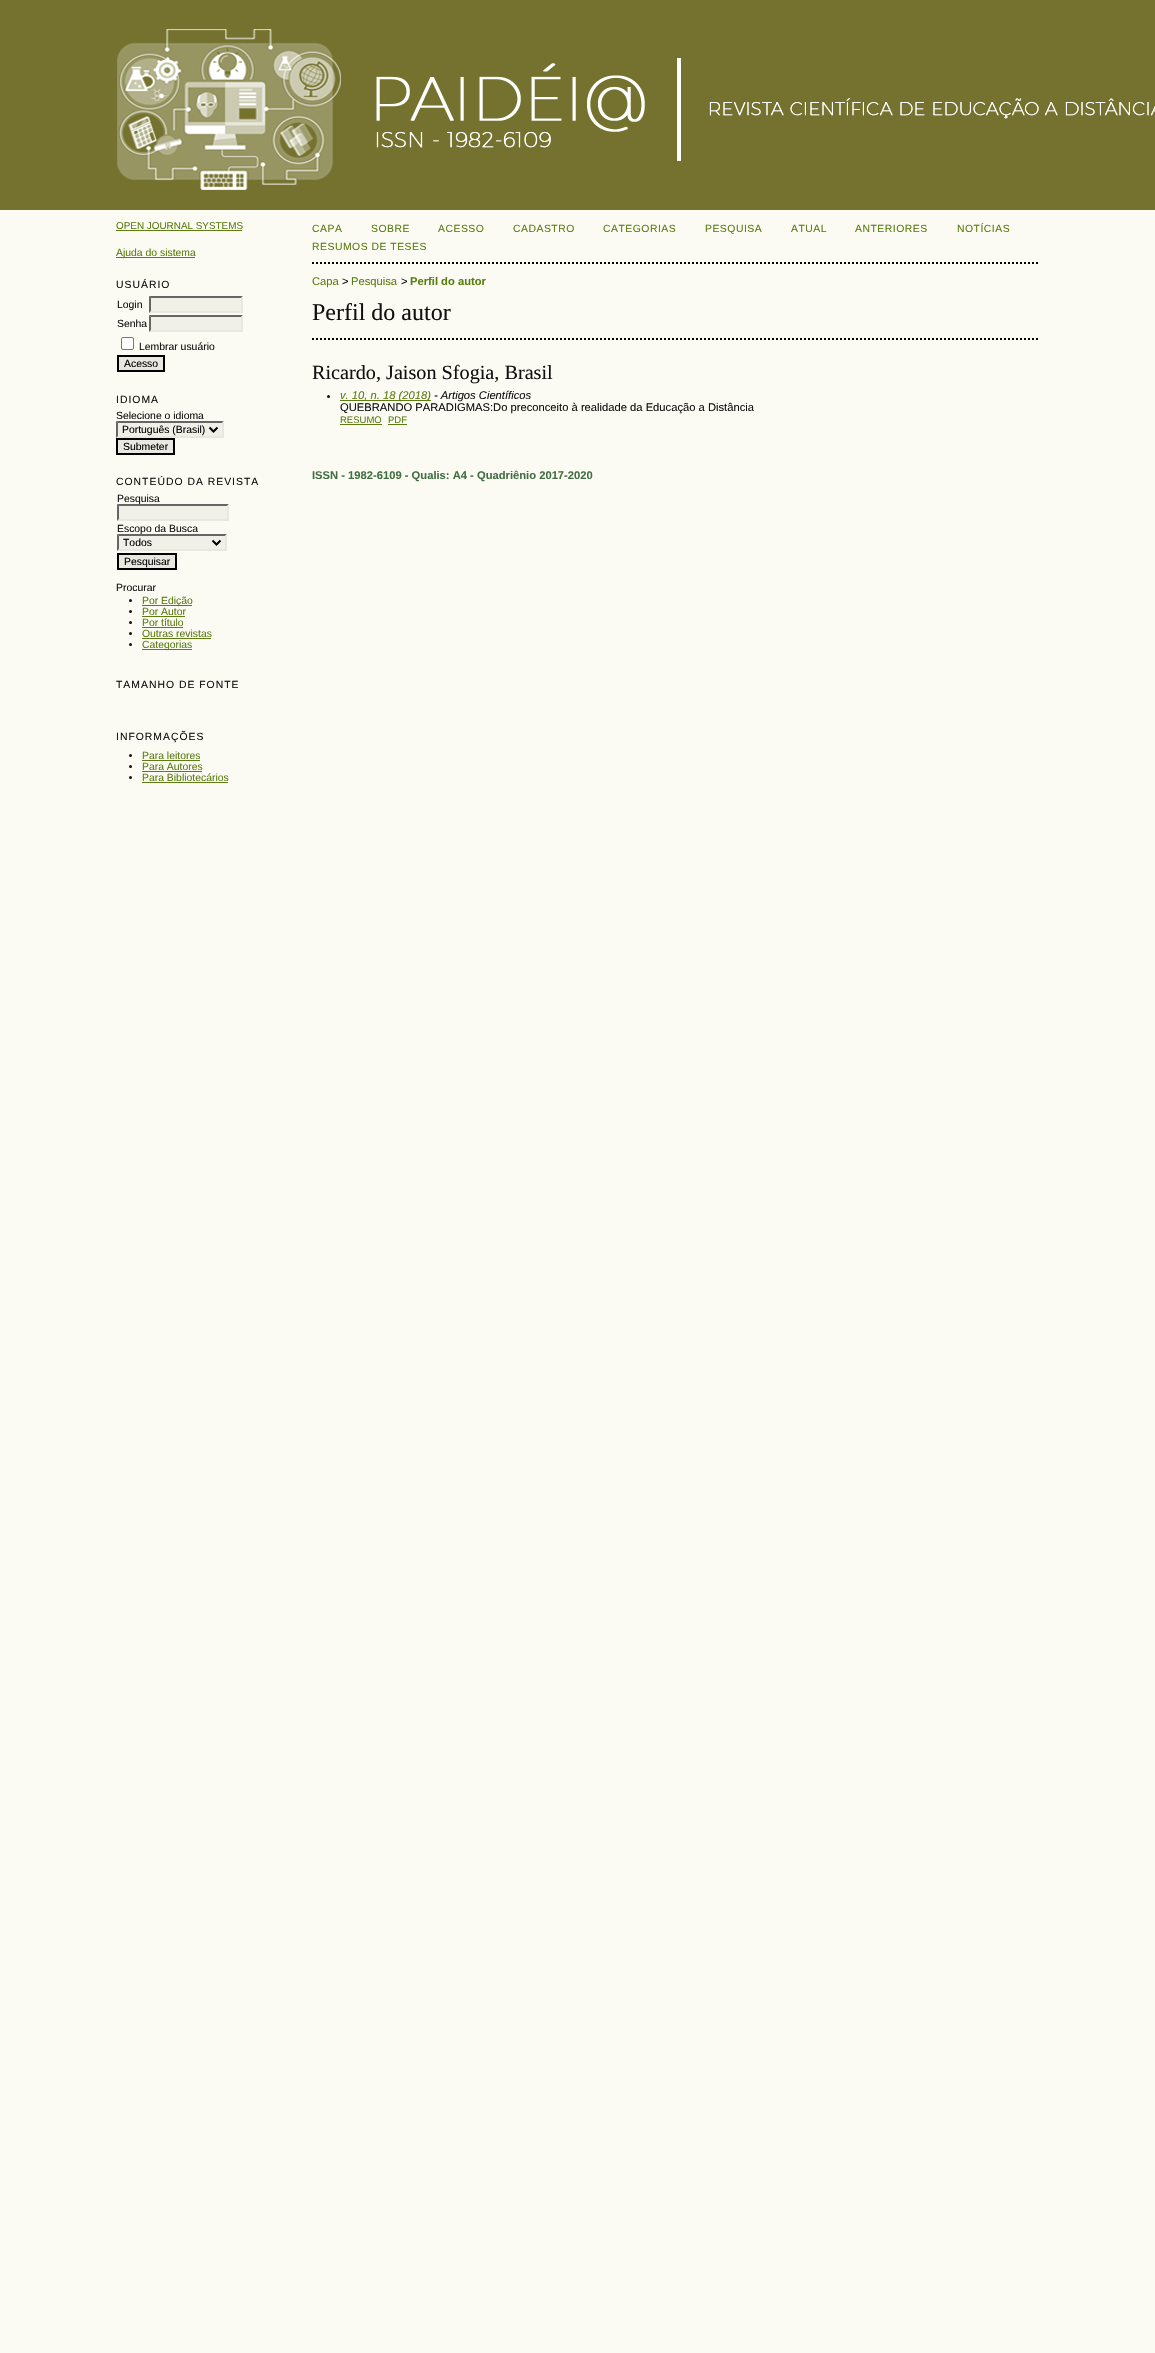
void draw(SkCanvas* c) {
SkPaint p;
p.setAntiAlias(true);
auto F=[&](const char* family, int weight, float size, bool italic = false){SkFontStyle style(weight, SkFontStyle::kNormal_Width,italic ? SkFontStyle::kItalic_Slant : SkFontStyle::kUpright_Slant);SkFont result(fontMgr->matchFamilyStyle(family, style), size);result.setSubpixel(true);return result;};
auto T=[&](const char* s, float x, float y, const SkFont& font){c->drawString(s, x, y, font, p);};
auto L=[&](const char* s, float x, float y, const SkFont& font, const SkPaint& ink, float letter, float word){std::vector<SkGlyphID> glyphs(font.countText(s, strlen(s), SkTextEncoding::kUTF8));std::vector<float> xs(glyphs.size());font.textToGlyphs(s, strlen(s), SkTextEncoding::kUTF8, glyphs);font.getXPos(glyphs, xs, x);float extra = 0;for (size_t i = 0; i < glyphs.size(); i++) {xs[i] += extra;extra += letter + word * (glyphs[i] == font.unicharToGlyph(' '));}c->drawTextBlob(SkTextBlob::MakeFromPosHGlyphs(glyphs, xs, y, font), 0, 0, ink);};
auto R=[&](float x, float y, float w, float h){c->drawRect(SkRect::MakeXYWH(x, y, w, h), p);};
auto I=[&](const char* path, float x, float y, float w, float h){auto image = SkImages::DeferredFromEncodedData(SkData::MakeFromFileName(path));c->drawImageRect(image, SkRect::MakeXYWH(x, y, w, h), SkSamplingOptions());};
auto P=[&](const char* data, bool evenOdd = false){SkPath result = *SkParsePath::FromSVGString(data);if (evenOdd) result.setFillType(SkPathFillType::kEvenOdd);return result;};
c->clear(0xfffbfbf3);
p.setColor(0xff74722e);
R(0,0,1155,210);
I("1.png",117,29,1038,161);
auto f1 = F("Liberation Sans",400,9.9);
p.setColor(0xff5b7d12);
T("OPEN JOURNAL SYSTEMS",116,229,f1);
R(116,230,126,1);
R(116,257,79,1);
auto f2 = F("Liberation Sans",400,10.4);
T("Ajuda do sistema",116,256,f2);
p.setColor(0xff111111);
L("USUÁRIO",116,288,f2,p,1,0);
T("Login",117,308,f2);
p.setColor(0xfff0f0e8);
R(149,296,94,17);
p.setColor(0xff666666);
c->drawPath(P("M149 296h94l-2 2h-90z"),p);
p.setColor(0xffe8e8e1);
c->drawPath(P("M243 296v17l-2-2v-13z"),p);
c->drawPath(P("M243 313h-94l2-2h90z"),p);
p.setColor(0xff666666);
c->drawPath(P("M149 313v-17l2 2v13z"),p);
p.setColor(0xff111111);
T("Senha",117,327,f2);
p.setColor(0xfff0f0e8);
R(149,315,94,17);
p.setColor(0xff666666);
c->drawPath(P("M149 315h94l-2 2h-90z"),p);
p.setColor(0xffe8e8e1);
c->drawPath(P("M243 315v17l-2-2v-13z"),p);
c->drawPath(P("M243 332h-94l2-2h90z"),p);
p.setColor(0xff666666);
c->drawPath(P("M149 332v-17l2 2v13z"),p);
p.setColor(0xffffffff);
c->drawRoundRect(SkRect::MakeXYWH(121.5,337.5,12,12),1.5,1.5,p);
p.setStroke(true);
p.setStrokeWidth(1);
p.setColor(0xff767676);
c->drawRoundRect(SkRect::MakeXYWH(121.5,337.5,12,12),1.5,1.5,p);
p.setStroke(false);
p.setColor(0xff111111);
T("Lembrar usuário",139,350,f2);
p.setColor(0xffe8e8e1);
c->drawRect(SkRect::MakeXYWH(118,356,46,15),p);
p.setStroke(true);
p.setStrokeWidth(2);
p.setColor(0xff000000);
c->drawRect(SkRect::MakeXYWH(118,356,46,15),p);
p.setStroke(false);
T("Acesso",124,367,f2);
p.setColor(0xff111111);
L("IDIOMA",116,403,f2,p,1,0);
T("Selecione o idioma",116,419,f2);
p.setColor(0xfff0f0e8);
R(116,421,108,17);
p.setColor(0xff666666);
c->drawPath(P("M116 421h108l-2 2h-104z"),p);
p.setColor(0xffe8e8e1);
c->drawPath(P("M224 421v17l-2-2v-13z"),p);
c->drawPath(P("M224 438h-108l2-2h104z"),p);
p.setColor(0xff666666);
c->drawPath(P("M116 438v-17l2 2v13z"),p);
p.setStroke(true);
p.setColor(0xff000000);
c->drawPath(P("M209.5 427.5l4 4l4-4"),p);
p.setStroke(false);
T("Português (Brasil)",122,433,f2);
p.setColor(0xffe8e8e1);
c->drawRect(SkRect::MakeXYWH(117,439,57,15),p);
p.setStroke(true);
p.setColor(0xff000000);
c->drawRect(SkRect::MakeXYWH(117,439,57,15),p);
p.setStroke(false);
T("Submeter",123,450,f2);
p.setColor(0xff111111);
L("CONTEÚDO DA REVISTA",116,485,f2,p,1,0);
T("Pesquisa",117,502,f2);
p.setColor(0xfff0f0e8);
R(117,504,112,17);
p.setColor(0xff666666);
c->drawPath(P("M117 504h112l-2 2h-108z"),p);
p.setColor(0xffe8e8e1);
c->drawPath(P("M229 504v17l-2-2v-13z"),p);
c->drawPath(P("M229 521h-112l2-2h108z"),p);
p.setColor(0xff666666);
c->drawPath(P("M117 521v-17l2 2v13z"),p);
p.setColor(0xff111111);
T("Escopo da Busca",117,532,f2);
p.setColor(0xfff0f0e8);
R(117,534,110,17);
p.setColor(0xff666666);
c->drawPath(P("M117 534h110l-2 2h-106z"),p);
p.setColor(0xffe8e8e1);
c->drawPath(P("M227 534v17l-2-2v-13z"),p);
c->drawPath(P("M227 551h-110l2-2h106z"),p);
p.setColor(0xff666666);
c->drawPath(P("M117 551v-17l2 2v13z"),p);
p.setStroke(true);
p.setColor(0xff000000);
c->drawPath(P("M212.5 540.5l4 4l4-4"),p);
p.setStroke(false);
T("Todos",123,546,f2);
p.setColor(0xffe8e8e1);
c->drawRect(SkRect::MakeXYWH(118,554,58,15),p);
p.setStroke(true);
p.setColor(0xff000000);
c->drawRect(SkRect::MakeXYWH(118,554,58,15),p);
p.setStroke(false);
T("Pesquisar",124,565,f2);
p.setColor(0xff111111);
T("Procurar",116,591,f2);
c->drawCircle(130.5,600.5,1.5,p);
p.setColor(0xff5b7d12);
R(142,605,50,1);
T("Por Edição",142,604,f2);
p.setColor(0xff111111);
c->drawCircle(130.5,611.5,1.5,p);
p.setColor(0xff5b7d12);
T("Por Autor",142,615,f2);
R(142,616,43,1);
p.setColor(0xff111111);
c->drawCircle(130.5,622.5,1.5,p);
p.setColor(0xff5b7d12);
T("Por título",142,626,f2);
R(142,627,41,1);
p.setColor(0xff111111);
c->drawCircle(130.5,633.5,1.5,p);
p.setColor(0xff5b7d12);
T("Outras revistas",142,637,f2);
R(142,638,69,1);
p.setColor(0xff111111);
c->drawCircle(130.5,644.5,1.5,p);
p.setColor(0xff5b7d12);
R(142,649,50,1);
T("Categorias",142,648,f2);
p.setColor(0xff111111);
L("TAMANHO DE FONTE",116,688,f2,p,1,0);
L("INFORMAÇÕES",116,740,f2,p,1,0);
c->drawCircle(130.5,755.5,1.5,p);
p.setColor(0xff5b7d12);
T("Para leitores",142,759,f2);
R(142,760,58,1);
p.setColor(0xff111111);
c->drawCircle(130.5,766.5,1.5,p);
p.setColor(0xff5b7d12);
T("Para Autores",142,770,f2);
R(142,771,60,1);
p.setColor(0xff111111);
c->drawCircle(130.5,777.5,1.5,p);
p.setColor(0xff5b7d12);
T("Para Bibliotecários",142,781,f2);
R(142,782,86,1);
p.setStroke(true);
p.setColor(0xff000000);
p.setPathEffect(SkDashPathEffect::Make({{2,2}}, 0));
c->drawPath(P("M312 263h728"),p);
p.setPathEffect(nullptr);
p.setStroke(false);
p.setColor(0xff5b7d12);
L("CAPA",312,232,f2,p,.5,0);
L("SOBRE",371,232,f2,p,.5,0);
L("ACESSO",438,232,f2,p,.5,0);
L("CADASTRO",513,232,f2,p,.5,0);
L("CATEGORIAS",603,232,f2,p,.5,0);
L("PESQUISA",705,232,f2,p,.5,0);
L("ATUAL",791,232,f2,p,.5,0);
L("ANTERIORES",855,232,f2,p,.5,0);
L("NOTÍCIAS",957,232,f2,p,.5,0);
L("RESUMOS DE TESES",312,250,f2,p,.5,0);
auto f3 = F("Liberation Sans",400,11.2);
T("Capa",312,285,f3);
p.setColor(0xff111111);
T(">",342,285,f3);
p.setColor(0xff5b7d12);
T("Pesquisa",351,285,f3);
p.setColor(0xff111111);
T(">",401,285,f3);
auto f4 = F("Liberation Sans",700,11.2);
p.setColor(0xff5b7d12);
T("Perfil do autor",410,285,f4);
auto f5 = F("Liberation Serif",400,24);
p.setColor(0xff111111);
T("Perfil do autor",312,320,f5);
p.setStroke(true);
p.setColor(0xff000000);
p.setPathEffect(SkDashPathEffect::Make({{2,2}}, 0));
c->drawPath(P("M312 339h728"),p);
p.setPathEffect(nullptr);
auto f6 = F("Liberation Serif",400,20.2);
p.setStroke(false);
p.setColor(0xff111111);
T("Ricardo, Jaison Sfogia, Brasil",312,379,f6);
c->drawCircle(328.5,396.5,1.5,p);
p.setColor(0xff5b7d12);
R(340,400,91,1);
auto f7 = F("Liberation Sans",400,11.2,true);
T("v. 10, n. 18 (2018)",340,399,f7);
p.setColor(0xff111111);
T("- Artigos Científicos",434,399,f7);
T("QUEBRANDO PARADIGMAS:Do preconceito à realidade da Educação a Distância",340,411,f3);
auto f8 = F("Liberation Sans",400,9.5);
p.setColor(0xff5b7d12);
T("RESUMO",340,423,f8);
R(340,424,42,1);
T("PDF",388,423,f8);
R(388,424,19,1);
p.setColor(0xff426f42);
T("ISSN - 1982-6109 - Qualis: A4 - Quadriênio 2017-2020",312,479,f4);
}
